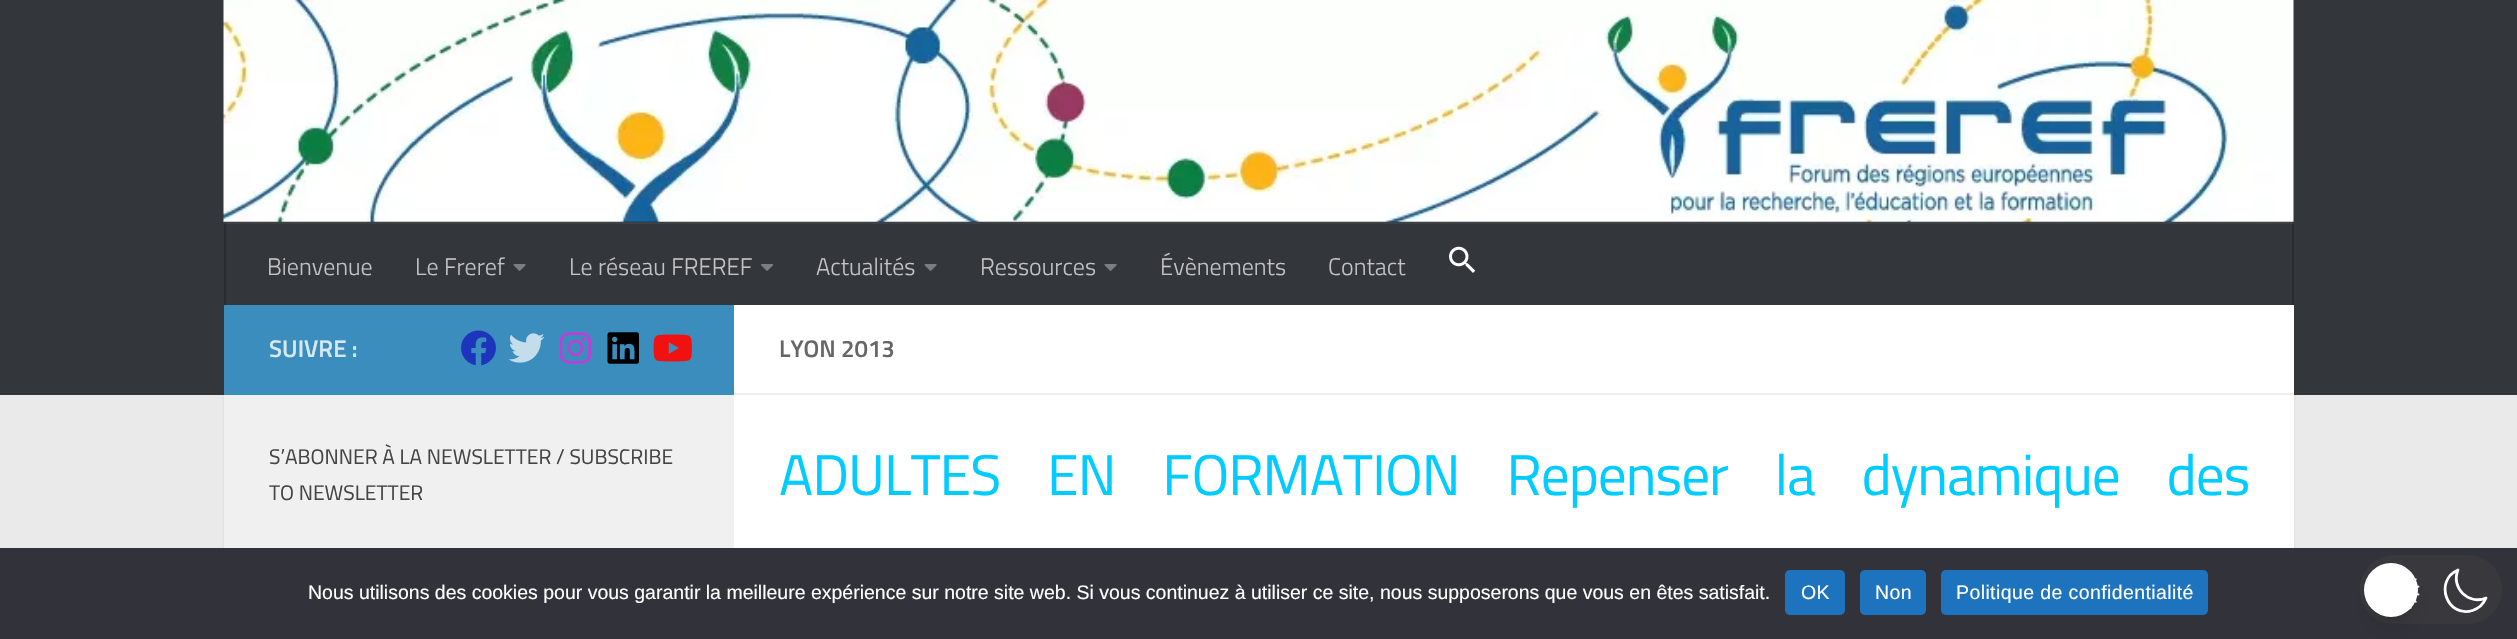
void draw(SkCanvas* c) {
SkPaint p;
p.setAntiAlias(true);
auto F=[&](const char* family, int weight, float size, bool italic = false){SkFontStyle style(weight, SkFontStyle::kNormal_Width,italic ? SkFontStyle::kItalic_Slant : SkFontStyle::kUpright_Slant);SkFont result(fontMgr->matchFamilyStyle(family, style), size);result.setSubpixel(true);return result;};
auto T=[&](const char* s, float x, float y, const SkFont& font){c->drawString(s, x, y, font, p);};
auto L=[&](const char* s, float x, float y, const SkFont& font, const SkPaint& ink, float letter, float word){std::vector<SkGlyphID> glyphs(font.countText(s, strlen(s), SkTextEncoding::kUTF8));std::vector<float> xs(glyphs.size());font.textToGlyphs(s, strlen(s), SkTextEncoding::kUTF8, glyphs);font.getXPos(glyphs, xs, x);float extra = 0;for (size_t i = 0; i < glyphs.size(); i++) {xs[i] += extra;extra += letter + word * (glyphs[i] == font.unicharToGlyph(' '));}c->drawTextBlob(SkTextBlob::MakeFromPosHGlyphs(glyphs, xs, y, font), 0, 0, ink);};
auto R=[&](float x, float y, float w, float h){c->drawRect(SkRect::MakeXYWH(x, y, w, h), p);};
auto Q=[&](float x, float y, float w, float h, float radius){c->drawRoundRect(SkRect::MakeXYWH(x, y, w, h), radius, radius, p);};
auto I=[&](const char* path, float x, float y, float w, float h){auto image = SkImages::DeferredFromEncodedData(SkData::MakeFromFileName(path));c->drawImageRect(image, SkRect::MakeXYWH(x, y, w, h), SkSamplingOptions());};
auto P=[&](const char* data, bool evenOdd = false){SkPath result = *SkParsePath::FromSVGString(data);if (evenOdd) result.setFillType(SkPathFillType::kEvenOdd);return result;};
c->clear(0xffeaeaea);
p.setColor(0x1a000000);
p.setMaskFilter(SkMaskFilter::MakeBlur(kNormal_SkBlurStyle, 1));
c->drawRect(SkRect::MakeXYWH(224,306,2070,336),p);
p.setMaskFilter(nullptr);
p.setColor(0xff33363b);
R(0,0,2517,395);
p.setColor(0xff3d4045);
R(224,222,2070,2);
I("1.png",223,0,2071,222);
p.setColor(0x33000000);
c->drawPath(P("M224 221v1h2070v81v-82z"),p);
p.setColor(0xff292b2f);
R(2292,222,2,83);
p.setColor(0xff343639);
R(2292,222,2,2);
p.setColor(0xff292b2f);
R(224,222,2,83);
p.setColor(0xff343639);
R(224,222,2,2);
auto f1 = F("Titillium",300,24);
p.setColor(0xffc2c3c4);
T("Bienvenue",267,275,f1);
T("Le Freref",415,275,f1);
I("2.png",513,264,13,7);
T("Le réseau FREREF",569,275,f1);
I("3.png",761,264,13,7);
T("Actualités",816,275,f1);
I("2.png",924,264,13,7);
T("Ressources",980,275,f1);
I("2.png",1104,264,13,7);
T("Évènements",1160,275,f1);
T("Contact",1328,275,f1);
I("4.png",1449,246,27,27);
p.setColor(0xffffffff);
R(734,305,1560,243);
p.setColor(0xff3b8dbd);
R(224,305,510,90);
auto f2 = F("Titillium",600,24);
p.setColor(0xffd8e8f2);
T("SUIVRE :",269,357,f2);
I("5.png",461,330,35,36);
I("6.png",508,333,37,30);
I("7.png",559,332,33,32);
I("8.png",607,332,32,32);
I("9.png",653,334,39,28);
p.setColor(0xfff0f0f0);
R(224,395,510,153);
auto f3 = F("Titillium",400,21.1);
p.setColor(0xff444444);
T("S’ABONNER À LA NEWSLETTER / SUBSCRIBE",269,464,f3);
T("TO NEWSLETTER",269,500,f3);
p.setColor(0xffeeeeee);
R(734,393,1560,2);
p.setColor(0xff666666);
T("LYON 2013",779,357,f2);
auto f4 = F("Titillium",400,57.4);
p.setColor(0xff00ccff);
L("ADULTES EN FORMATION Repenser la dynamique des",779,495,f4,p,-1.05,35.25);
p.setColor(0xff32323a);
R(0,548,2517,91);
auto f5 = F("Liberation Sans",400,19.5);
p.setColor(0xffffffff);
T("Nous utilisons des cookies pour vous garantir la meilleure expérience sur notre site web. Si vous continuez à utiliser ce site, nous supposerons que vous en êtes satisfait.",308,599,f5);
p.setColor(0xff1e73be);
Q(1785,570,60,45,5);
p.setColor(0xffffffff);
L("OK",1801,599,f5,p,.4,0);
p.setColor(0xff1e73be);
Q(1860,570,66,45,5);
p.setColor(0xffffffff);
L("Non",1875,599,f5,p,.4,0);
p.setColor(0xff1e73be);
Q(1941,570,267,45,5);
p.setColor(0xffffffff);
L("Politique de confidentialité",1956,599,f5,p,.4,0);
p.setColor(0xff39393d);
Q(2360,555,142,69,34.5);
I("10.png",2410,572,10,37);
p.setColor(0x1a000000);
p.setMaskFilter(SkMaskFilter::MakeBlur(kNormal_SkBlurStyle, 4.5));
c->drawRoundRect(SkRect::MakeXYWH(2370,575,42,42),21,21,p);
p.setMaskFilter(nullptr);
p.setStroke(true);
p.setStrokeWidth(2.8);
p.setStrokeCap(SkPaint::kRound_Cap);
p.setStrokeJoin(SkPaint::kRound_Join);
p.setColor(0xffffffff);
c->drawPath(P("M2486 598c-17.5 7.5-35.5-10.5-28-28c-24.5 10.5-11 48.5 14.5 40.5c6-2 11-6.5 13.5-12.5z"),p);
p.setStroke(false);
p.setColor(0x1a000000);
p.setMaskFilter(SkMaskFilter::MakeBlur(kNormal_SkBlurStyle, 11));
c->drawRoundRect(SkRect::MakeXYWH(2369,582,45,45),22.5,22.5,p);
p.setMaskFilter(nullptr);
p.setColor(0xffffffff);
c->drawCircle(2391,590,27,p);
}
